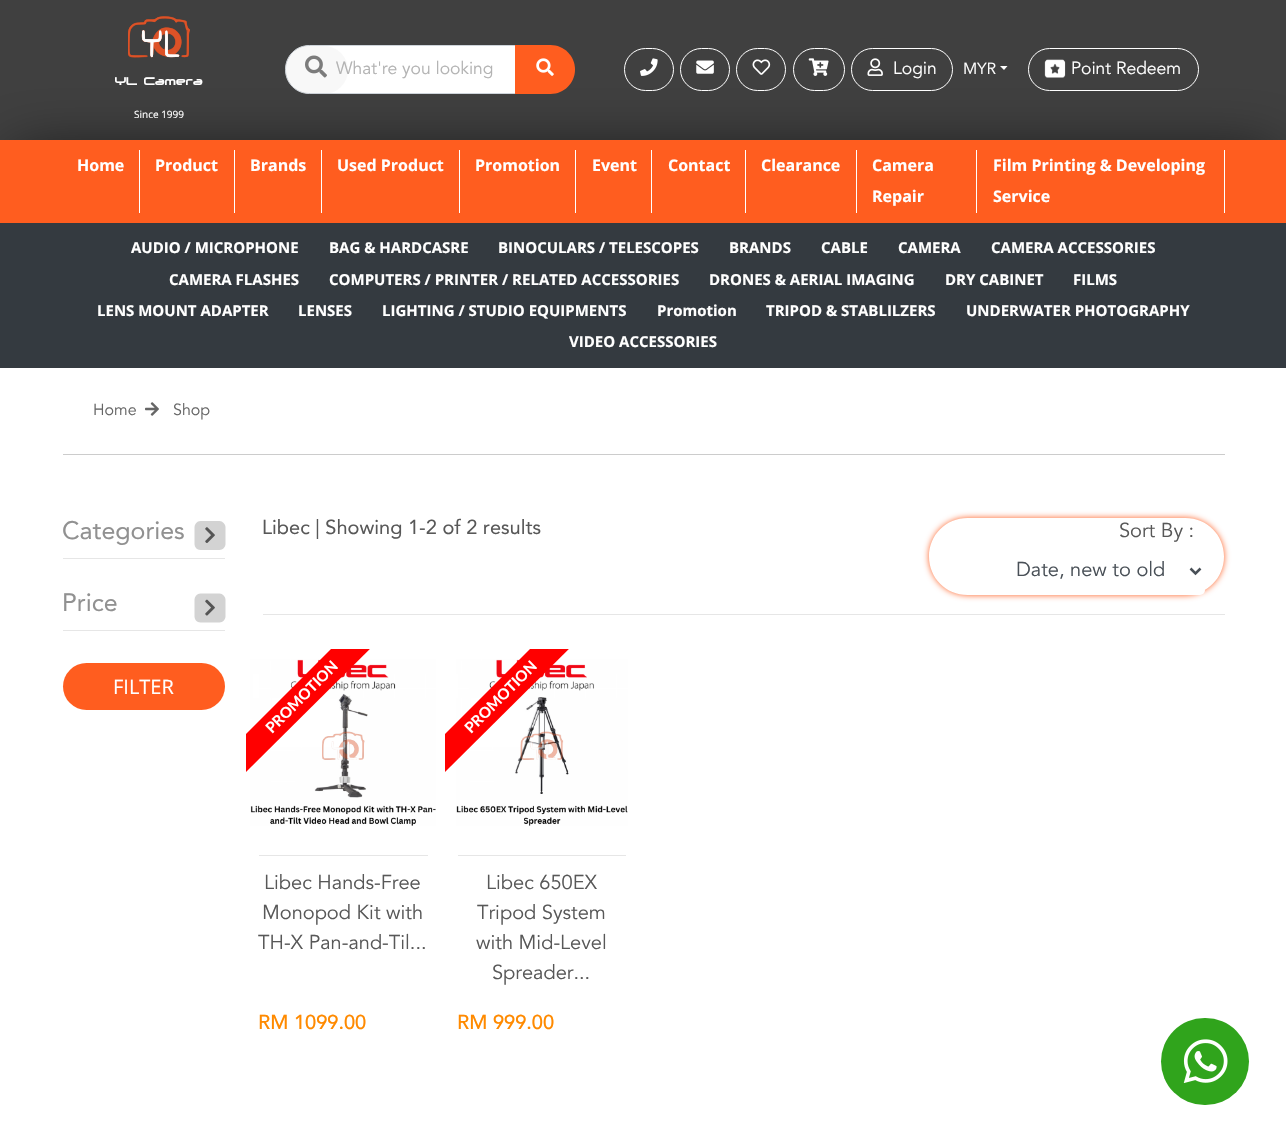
void draw(SkCanvas* c) {
SkPaint p;
p.setAntiAlias(true);
auto F=[&](const char* family, int weight, float size, bool italic = false){SkFontStyle style(weight, SkFontStyle::kNormal_Width,italic ? SkFontStyle::kItalic_Slant : SkFontStyle::kUpright_Slant);SkFont result(fontMgr->matchFamilyStyle(family, style), size);result.setSubpixel(true);return result;};
auto T=[&](const char* s, float x, float y, const SkFont& font){c->drawString(s, x, y, font, p);};
auto R=[&](float x, float y, float w, float h){c->drawRect(SkRect::MakeXYWH(x, y, w, h), p);};
auto Q=[&](float x, float y, float w, float h, float radius){c->drawRoundRect(SkRect::MakeXYWH(x, y, w, h), radius, radius, p);};
auto I=[&](const char* path, float x, float y, float w, float h){auto image = SkImages::DeferredFromEncodedData(SkData::MakeFromFileName(path));c->drawImageRect(image, SkRect::MakeXYWH(x, y, w, h), SkSamplingOptions());};
auto P=[&](const char* data, bool evenOdd = false){SkPath result = *SkParsePath::FromSVGString(data);if (evenOdd) result.setFillType(SkPathFillType::kEvenOdd);return result;};
c->clear(0xffffffff);
p.setColor(0xff404040);
R(0,0,1286,140);
p.setColor(0xbf000000);
p.setMaskFilter(SkMaskFilter::MakeBlur(kNormal_SkBlurStyle, 31));
c->drawRect(SkRect::MakeXYWH(13,156,1261,58),p);
p.setMaskFilter(nullptr);
p.setColor(0xffffffff);
c->drawPath(P("M309.5 45.5h206v48h-206c-13.5 0-24-10.5-24-24c0-13.5 10.5-24 24-24z"),p);
p.setStroke(true);
p.setStrokeWidth(1);
p.setColor(0xffced4da);
c->drawPath(P("M309.5 45.5h206v48h-206c-13.5 0-24-10.5-24-24c0-13.5 10.5-24 24-24z"),p);
p.setStroke(false);
p.setColor(0x1abbbbbb);
Q(285,46,63,48,24);
I("1.png",305,55,22,23);
auto f1 = F("Avenir",400,17.5);
p.setColor(0xffb3b3b3);
T("What're you looking",336,74,f1);
p.setColor(0xffff5d1f);
c->drawPath(P("M515 45h35.5c13.5 0 24.5 11 24.5 24.5c0 13.5-11 24.5-24.5 24.5h-35.5z"),p);
I("2.png",536,58,18,18);
p.setStroke(true);
p.setColor(0xffffffff);
c->drawRoundRect(SkRect::MakeXYWH(624.5,48.5,49,42),21,21,p);
I("3.png",640,58,18,18);
c->drawRoundRect(SkRect::MakeXYWH(680.5,48.5,49,42),21,21,p);
I("4.png",696,60,18,14);
c->drawRoundRect(SkRect::MakeXYWH(736.5,48.5,49,42),21,21,p);
I("5.png",752,59,19,16);
c->drawRoundRect(SkRect::MakeXYWH(793.5,48.5,51,42),21,21,p);
I("6.png",808,58,21,18);
c->drawRoundRect(SkRect::MakeXYWH(851.5,48.5,101,42),21,21,p);
I("7.png",867,58,16,18);
p.setStroke(false);
T("Login",893,74,f1);
auto f2 = F("Avenir",400,16);
T("MYR",963,74,f2);
c->drawPath(P("M1000 66h7.5l-3.5 4z"),p);
p.setStroke(true);
c->drawRoundRect(SkRect::MakeXYWH(1028.5,48.5,170,42),21,21,p);
I("8.png",1044,59,22,19);
p.setStroke(false);
T("Point Redeem",1071,74,f1);
I("9.png",128,16,62,42);
auto f3 = F("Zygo",400,12);
T("YL Camera",115,85,f3);
auto f4 = F("Open Sans",400,10);
T("Since 1999",134,118,f4);
p.setColor(0xff30a41c);
Q(1161,1018,88,87,43.5);
I("10.png",1183,1039,45,44);
p.setColor(0xffff5d1f);
R(0,140,1286,83);
p.setColor(0xffffffff);
R(139,150,1,63);
auto f5 = F("Open Sans",700,16);
T("Home",77,171,f5);
R(234,150,1,63);
T("Product",155,171,f5);
R(321,150,1,63);
T("Brands",250,171,f5);
R(459,150,1,63);
T("Used Product",337,171,f5);
R(575,150,1,63);
T("Promotion",475,171,f5);
R(651,150,1,63);
T("Event",592,171,f5);
R(745,150,1,63);
T("Contact",668,171,f5);
R(856,150,1,63);
T("Clearance",761,171,f5);
R(976,150,1,63);
T("Camera",872,171,f5);
T("Repair",872,202,f5);
R(1224,150,1,63);
T("Film Printing & Developing",993,171,f5);
T("Service",993,202,f5);
p.setColor(0xff343a40);
R(0,223,1286,145);
auto f6 = F("Open Sans",700,15);
p.setColor(0xffffffff);
T("AUDIO / MICROPHONE",131,253,f6);
T("BAG & HARDCASRE",329,253,f6);
T("BINOCULARS / TELESCOPES",498,253,f6);
T("BRANDS",729,253,f6);
T("CABLE",821,253,f6);
T("CAMERA",898,253,f6);
T("CAMERA ACCESSORIES",991,253,f6);
T("CAMERA FLASHES",169,285,f6);
T("COMPUTERS / PRINTER / RELATED ACCESSORIES",329,285,f6);
T("DRONES & AERIAL IMAGING",709,285,f6);
T("DRY CABINET",945,285,f6);
T("FILMS",1073,285,f6);
T("LENS MOUNT ADAPTER",97,316,f6);
T("LENSES",298,316,f6);
T("LIGHTING / STUDIO EQUIPMENTS",382,316,f6);
T("Promotion",657,316,f6);
T("TRIPOD & STABLILZERS",766,316,f6);
T("UNDERWATER PHOTOGRAPHY",966,316,f6);
T("VIDEO ACCESSORIES",569,347,f6);
p.setColor(0xffcccccc);
R(63,454,1162,1);
p.setColor(0xff666666);
T("Home",93,415,f2);
I("11.png",145,402,14,14);
T("Shop",173,415,f2);
p.setColor(0xffe6e6e6);
R(63,558,162,1);
auto f7 = F("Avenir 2",400,25);
p.setColor(0xff919191);
T("Categories",62,539,f7);
p.setColor(0xffd3d3d3);
c->drawPath(P("M225.5 527.5v16.5c0 3-3 6-6 6h-19c-3.5 0-6-3-6-6v-16.5c0-3.5 2.5-6.5 6-6.5h19c3 0 6 3 6 6.5z"),p);
I("12.png",205,527,10,16);
p.setColor(0xffe6e6e6);
R(63,630,162,1);
p.setColor(0xff919191);
T("Price",62,611,f7);
p.setColor(0xffd3d3d3);
c->drawPath(P("M225.5 600v16.5c0 3-3 6-6 6h-19c-3.5 0-6-3-6-6v-16.5c0-3.5 2.5-6.5 6-6.5h19c3 0 6 3 6 6.5z"),p);
I("13.png",205,599,10,17);
p.setColor(0xffff5d1f);
Q(63,663,162,47,23.5);
auto f8 = F("Open Sans",400,20);
p.setColor(0xffffffff);
T("FILTER",113,694,f8);
p.setColor(0xffe6e6e6);
R(263,614,962,1);
auto f9 = F("Avenir 2",400,20);
p.setColor(0xff585858);
T("Libec | Showing 1-2 of 2 results",262,534,f9);
c->save();
c->clipPath(P("M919 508h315v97h-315zm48.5 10h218c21.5 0 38.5 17 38.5 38.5c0 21.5-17 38.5-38.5 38.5h-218c-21.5 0-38.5-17-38.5-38.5c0-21.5 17-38.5 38.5-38.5z",true),true);
p.setColor(0xffff5d1f);
p.setMaskFilter(SkMaskFilter::MakeBlur(kNormal_SkBlurStyle, 3));
c->drawRoundRect(SkRect::MakeXYWH(929,518,295,77),38.5,38.5,p);
p.setMaskFilter(nullptr);
c->restore();
auto f10 = F("Avenir",400,20);
p.setColor(0xff585858);
T("Sort By :",1119,537,f10);
p.setColor(0xffffffff);
Q(995,548,210,47,5);
p.setStroke(true);
p.setStrokeWidth(2.5);
p.setColor(0xff495057);
c->drawPath(P("M1190.5 568.5l5 5l5-5"),p);
p.setStroke(false);
T("Date, new to old",1016,576,f10);
I("14.png",250,659,186,167);
c->save();
c->clipRect(SkRect::MakeXYWH(246,649,125,125));
p.setColor(0xffff0000);
c->drawPath(P("M217 763l150-150l20 19l-151 150z"),p);
c->restore();
auto f11 = F("Lato",700,15);
p.setColor(0xffffffff);
c->save();
c->rotate(-45,272,734);
T("PROMOTION",272,734,f11);
c->restore();
p.setColor(0xffe6e6e6);
R(259,855,169,1);
p.setColor(0xff585858);
T("Libec Hands-Free",264,889,f10);
T("Monopod Kit with",262,919,f10);
T("TH-X Pan-and-Til...",258,949,f10);
auto f12 = F("Avenir",500,20);
p.setColor(0xffff8a00);
T("RM 1099.00",258,1029,f12);
I("15.png",456,659,172,167);
c->save();
c->clipRect(SkRect::MakeXYWH(445,649,125,125));
p.setColor(0xffff0000);
c->drawPath(P("M416 763l150-150l20 19l-151 150z"),p);
c->restore();
p.setColor(0xffffffff);
c->save();
c->rotate(-45,471,734);
T("PROMOTION",471,734,f11);
c->restore();
p.setColor(0xffe6e6e6);
R(458,855,168,1);
p.setColor(0xff585858);
T("Libec 650EX",486,889,f10);
T("Tripod System",477,919,f10);
T("with Mid-Level",476,949,f10);
T("Spreader...",492,979,f10);
p.setColor(0xffff8a00);
T("RM 999.00",457,1029,f12);
}
